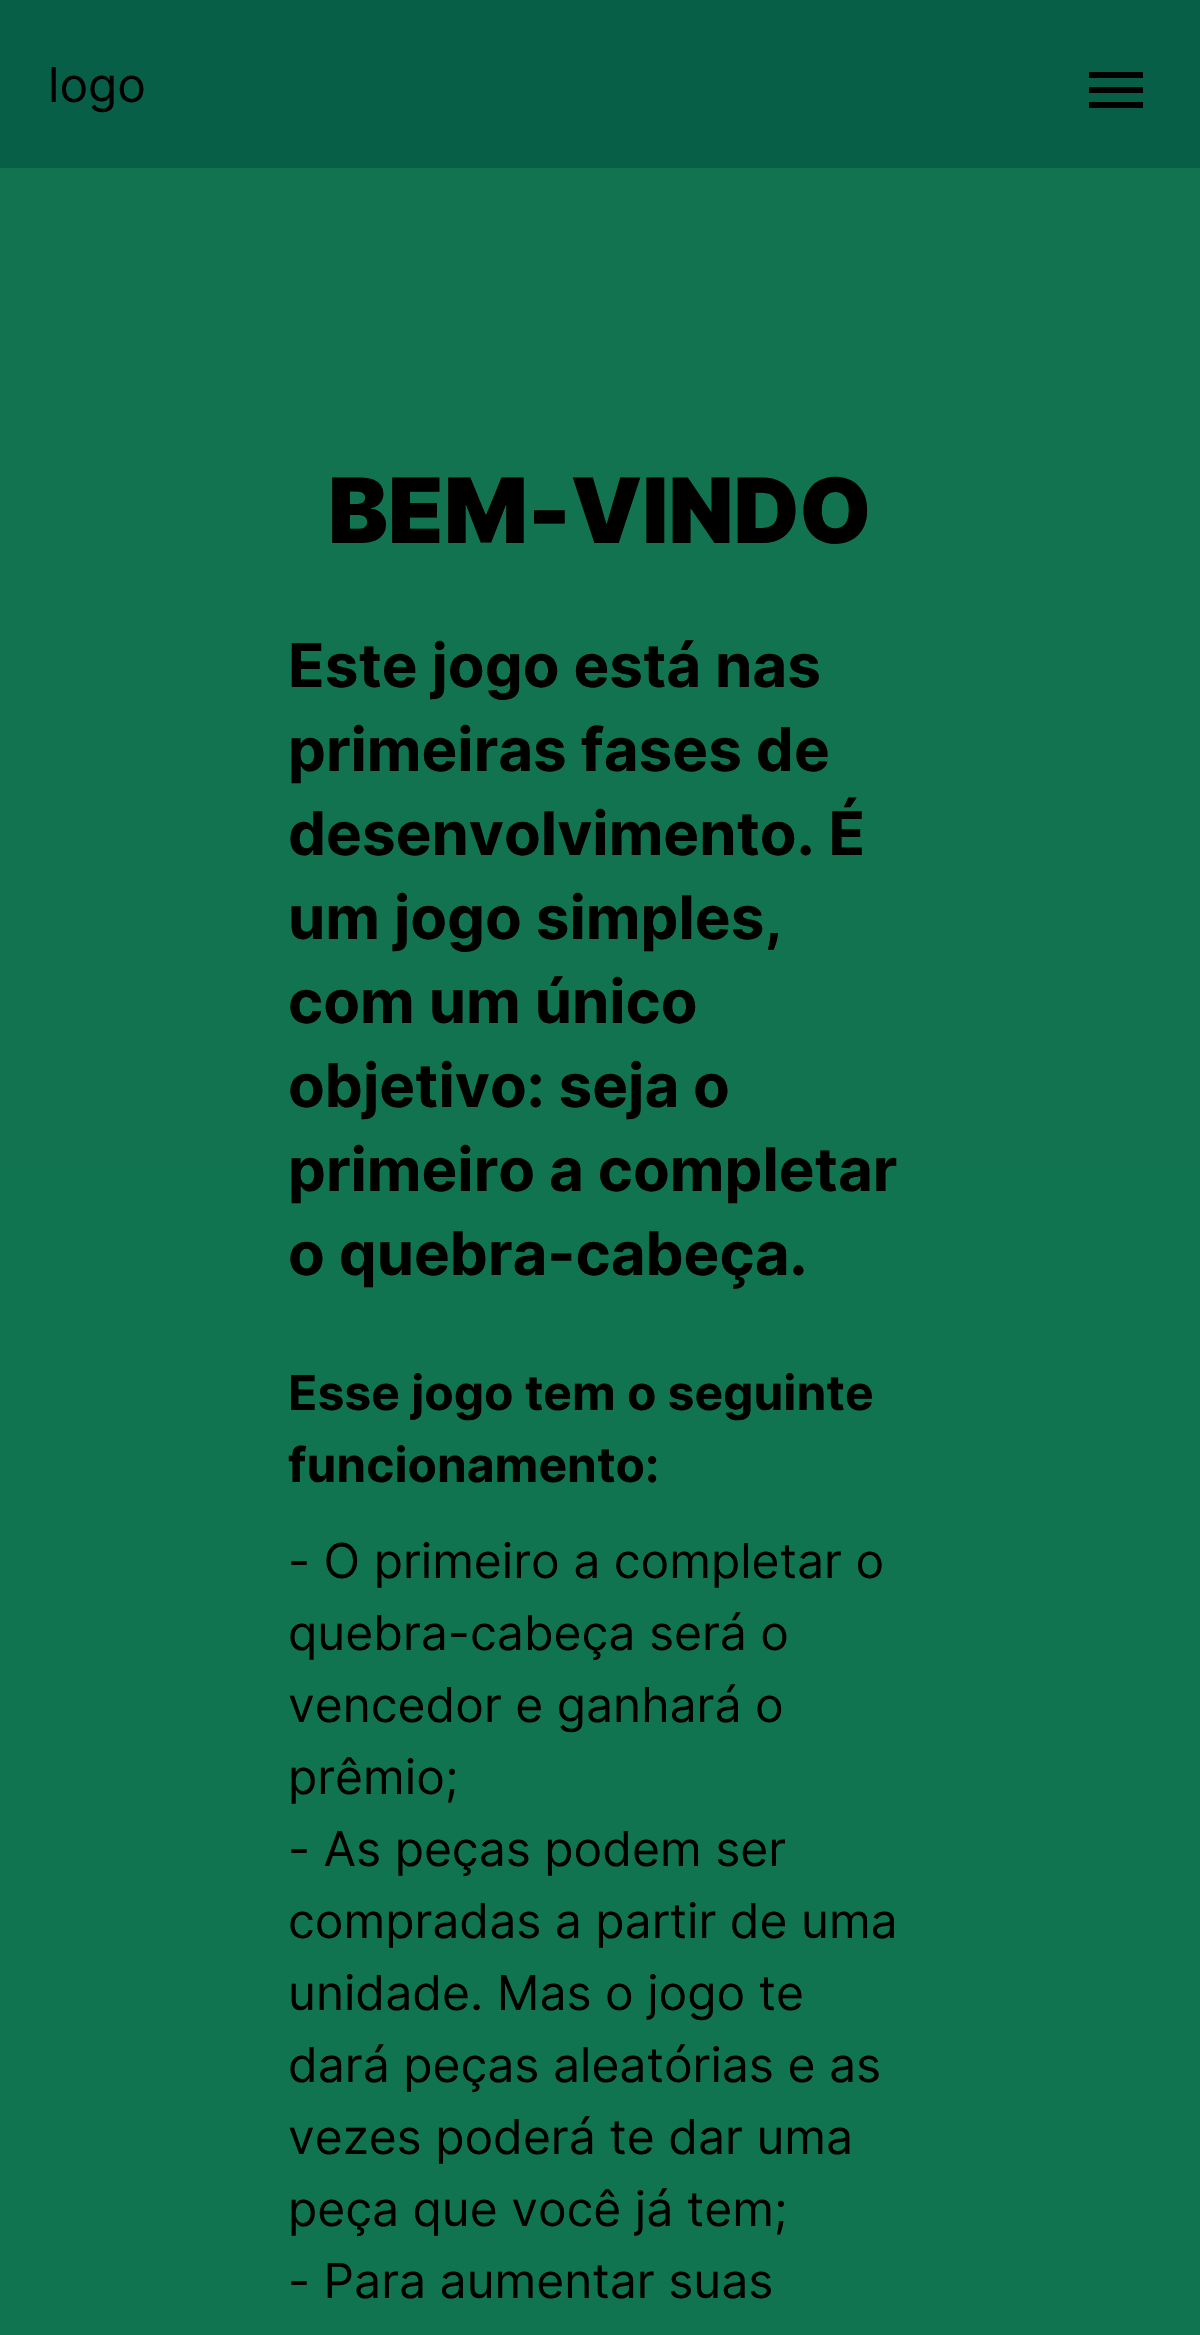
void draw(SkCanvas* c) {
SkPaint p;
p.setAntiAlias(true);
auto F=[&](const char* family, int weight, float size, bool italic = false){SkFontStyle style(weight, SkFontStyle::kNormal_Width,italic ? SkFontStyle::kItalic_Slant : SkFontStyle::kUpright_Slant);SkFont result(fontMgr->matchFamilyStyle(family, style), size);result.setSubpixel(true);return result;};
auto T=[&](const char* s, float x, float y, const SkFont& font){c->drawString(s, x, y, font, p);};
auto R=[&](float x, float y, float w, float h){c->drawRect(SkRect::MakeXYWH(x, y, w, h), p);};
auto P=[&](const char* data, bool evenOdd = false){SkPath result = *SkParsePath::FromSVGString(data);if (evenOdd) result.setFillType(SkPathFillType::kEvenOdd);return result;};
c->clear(0xffffffff);
{
const SkColor colors[] = {0xff117350,0xff117450};
const float stops[] = {0,1};
const SkPoint ends[] = {{600,0}, {600,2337}};
p.setShader(SkGradientShader::MakeLinear(ends, colors, stops, 2, SkTileMode::kClamp));
p.setAlpha(255);
}
R(0,168,1200,2167);
p.setShader(nullptr);
p.setColor(0xff065f46);
R(0,0,1200,168);
auto f1 = F("Inter",400,48);
p.setColor(0xff000000);
T("logo",48,102,f1);
c->drawPath(P("M1089 72h54v6h-54v-6m0 15h54v6h-54v-6m0 15h54v6h-54z"),p);
auto f2 = F("Inter",900,90);
T("BEM-VINDO",328,543,f2);
auto f3 = F("Inter",700,60);
T("Este jogo está nas",288,687,f3);
T("primeiras fases de",288,771,f3);
T("desenvolvimento. É",288,855,f3);
T("um jogo simples,",288,939,f3);
T("com um único",288,1023,f3);
T("objetivo: seja o",288,1107,f3);
T("primeiro a completar",288,1191,f3);
T("o quebra-cabeça.",288,1275,f3);
auto f4 = F("Inter",700,48);
T("Esse jogo tem o seguinte",288,1410,f4);
T("funcionamento:",288,1482,f4);
T("- O primeiro a completar o",288,1578,f1);
T("quebra-cabeça será o",288,1650,f1);
T("vencedor e ganhará o",288,1722,f1);
T("prêmio;",288,1794,f1);
T("- As peças podem ser",288,1866,f1);
T("compradas a partir de uma",288,1938,f1);
T("unidade. Mas o jogo te",288,2010,f1);
T("dará peças aleatórias e as",288,2082,f1);
T("vezes poderá te dar uma",288,2154,f1);
T("peça que você já tem;",288,2226,f1);
T("- Para aumentar suas",288,2298,f1);
}
